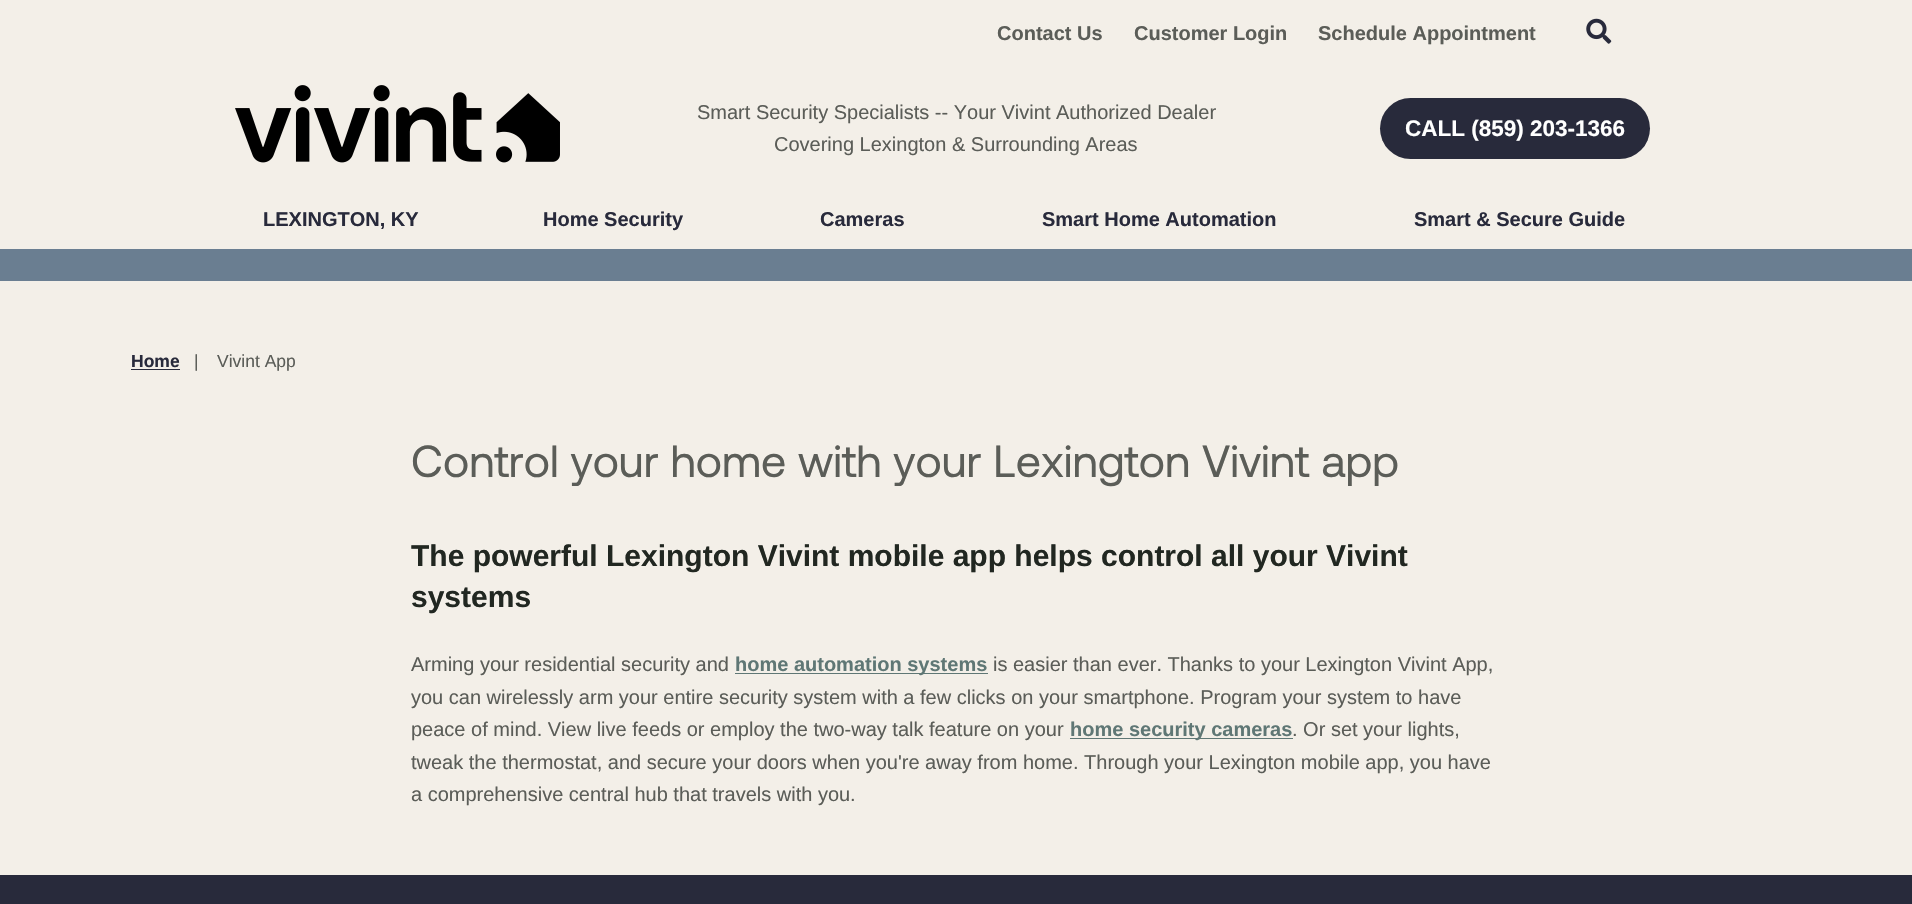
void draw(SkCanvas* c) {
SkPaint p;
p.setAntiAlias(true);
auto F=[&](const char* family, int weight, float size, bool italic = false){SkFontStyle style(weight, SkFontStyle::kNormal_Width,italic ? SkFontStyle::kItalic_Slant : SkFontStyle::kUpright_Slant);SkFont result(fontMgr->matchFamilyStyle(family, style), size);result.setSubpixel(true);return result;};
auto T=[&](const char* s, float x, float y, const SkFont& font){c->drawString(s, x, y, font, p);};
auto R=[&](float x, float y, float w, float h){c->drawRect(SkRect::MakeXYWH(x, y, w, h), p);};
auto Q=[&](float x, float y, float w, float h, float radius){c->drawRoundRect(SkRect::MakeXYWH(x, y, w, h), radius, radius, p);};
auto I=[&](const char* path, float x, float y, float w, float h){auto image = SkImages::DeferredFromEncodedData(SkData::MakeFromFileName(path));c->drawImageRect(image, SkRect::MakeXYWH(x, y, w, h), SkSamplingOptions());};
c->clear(0xfff3efe8);
auto f1 = F("Liberation Sans",700,20);
p.setColor(0xff5b5d58);
T("Contact Us",997,40,f1);
T("Customer Login",1134,40,f1);
T("Schedule Appointment",1318,40,f1);
I("1.png",1586,18,26,26);
I("2.png",235,85,325,78);
auto f2 = F("Liberation Sans",400,20);
T("Smart Security Specialists -- Your Vivint Authorized Dealer",697,119,f2);
T("Covering Lexington & Surrounding Areas",774,151,f2);
p.setColor(0xff282a3b);
Q(1380,98,270,61,30.5);
auto f3 = F("Liberation Sans",700,22.5);
p.setColor(0xffffffff);
T("CALL (859) 203-1366",1405,136,f3);
p.setColor(0xff282a3b);
T("LEXINGTON, KY",263,226,f1);
T("Home Security",543,226,f1);
T("Cameras",820,226,f1);
T("Smart Home Automation",1042,226,f1);
T("Smart & Secure Guide",1414,226,f1);
p.setColor(0xff6a7e91);
R(0,249,1912,32);
auto f4 = F("Liberation Sans",700,17.5);
p.setColor(0xff282a3b);
T("Home",131,367,f4);
R(131,369,49,1);
auto f5 = F("Liberation Sans",400,17.5);
p.setColor(0xff5b5d58);
T("|",194,367,f5);
T("Vivint App",217,367,f5);
auto f6 = F("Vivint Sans",400,45);
T("Control your home with your Lexington Vivint app",411,477,f6);
auto f7 = F("Liberation Sans",700,30);
p.setColor(0xff212721);
T("The powerful Lexington Vivint mobile app helps control all your Vivint",411,566,f7);
T("systems",411,607,f7);
p.setColor(0xff5b5d58);
T("Arming your residential security and",411,671,f2);
p.setColor(0xff5f7775);
R(735,673,253,1);
T("home automation systems",735,671,f1);
p.setColor(0xff5b5d58);
T("is easier than ever. Thanks to your Lexington Vivint App,",993,671,f2);
T("you can wirelessly arm your entire security system with a few clicks on your smartphone. Program your system to have",411,704,f2);
T("peace of mind. View live feeds or employ the two-way talk feature on your",411,736,f2);
p.setColor(0xff5f7775);
R(1070,738,223,1);
T("home security cameras",1070,736,f1);
p.setColor(0xff5b5d58);
T(". Or set your lights,",1292,736,f2);
T("tweak the thermostat, and secure your doors when you're away from home. Through your Lexington mobile app, you have",411,769,f2);
T("a comprehensive central hub that travels with you.",411,801,f2);
p.setColor(0xff282a3b);
R(0,875,1912,29);
}
